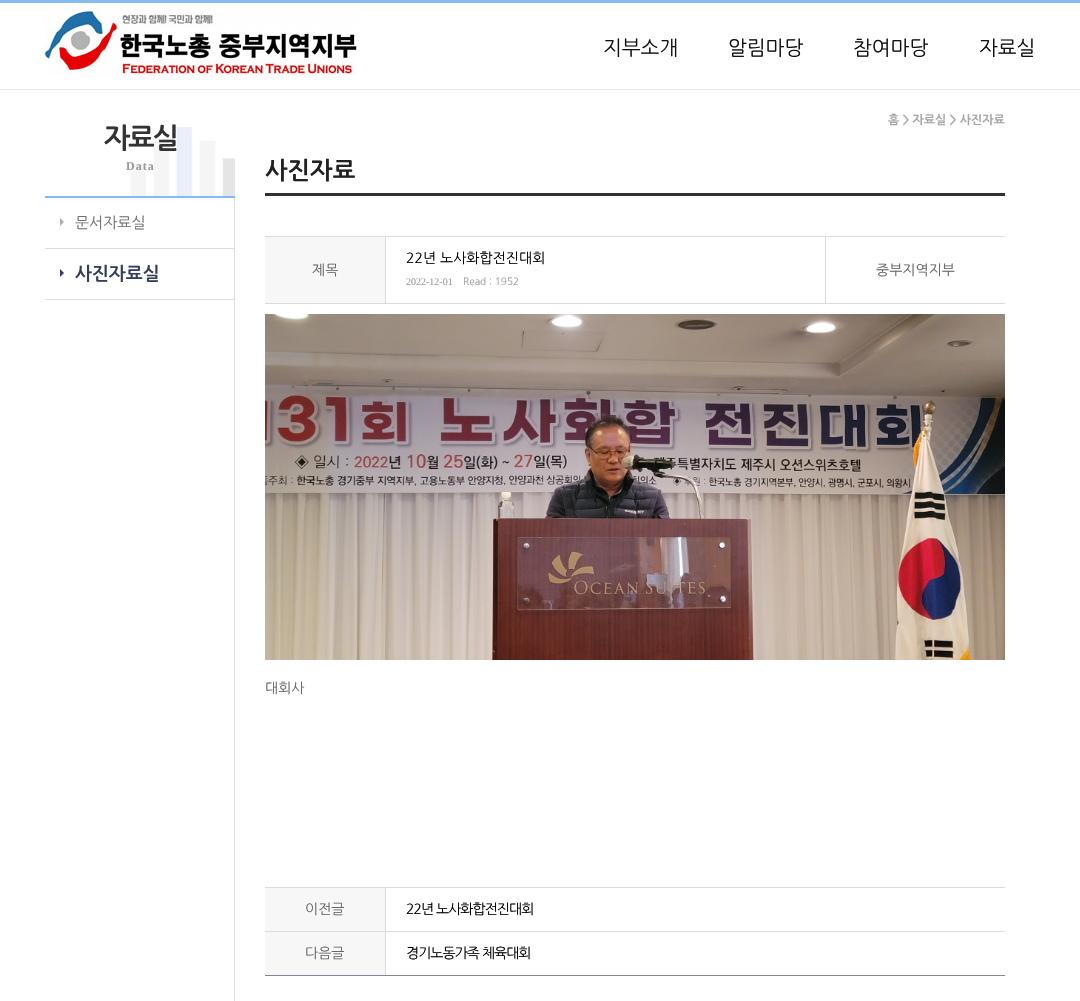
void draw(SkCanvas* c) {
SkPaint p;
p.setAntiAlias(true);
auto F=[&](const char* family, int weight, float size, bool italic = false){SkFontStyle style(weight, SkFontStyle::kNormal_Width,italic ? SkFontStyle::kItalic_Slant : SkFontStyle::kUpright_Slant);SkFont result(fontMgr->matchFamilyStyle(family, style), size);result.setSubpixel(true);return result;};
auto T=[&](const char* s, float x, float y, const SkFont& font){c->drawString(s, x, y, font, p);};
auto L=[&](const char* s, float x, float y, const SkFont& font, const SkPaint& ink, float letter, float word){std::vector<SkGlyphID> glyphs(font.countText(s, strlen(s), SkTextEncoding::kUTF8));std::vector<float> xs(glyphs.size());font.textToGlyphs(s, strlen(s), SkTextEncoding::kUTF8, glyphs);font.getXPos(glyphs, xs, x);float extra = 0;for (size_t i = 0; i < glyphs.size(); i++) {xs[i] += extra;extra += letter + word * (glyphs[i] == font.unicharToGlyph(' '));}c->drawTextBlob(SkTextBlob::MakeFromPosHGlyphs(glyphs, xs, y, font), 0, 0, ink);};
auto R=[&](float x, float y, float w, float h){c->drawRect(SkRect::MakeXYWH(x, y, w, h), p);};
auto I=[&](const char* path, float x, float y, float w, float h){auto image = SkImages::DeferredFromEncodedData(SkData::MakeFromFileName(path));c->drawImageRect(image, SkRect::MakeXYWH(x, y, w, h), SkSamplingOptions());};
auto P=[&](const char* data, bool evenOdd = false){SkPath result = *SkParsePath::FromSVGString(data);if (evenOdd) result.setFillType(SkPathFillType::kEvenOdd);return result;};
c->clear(0xffffffff);
p.setColor(0xff86bbef);
R(0,0,1080,3);
p.setColor(0xffe9e9e9);
R(0,89,1080,1);
I("1.png",45,10,314,65);
auto f1 = F("NanumGothic",400,20);
p.setColor(0xff111111);
T("지부소개",603,55,f1);
T("알림마당",728,55,f1);
T("참여마당",853,55,f1);
T("자료실",979,55,f1);
I("2.png",45,127,190,71);
auto f2 = F("NanumGothic",700,28);
p.setColor(0xff333333);
L("자료실",104,148,f2,p,-2,0);
auto f3 = F("Liberation Serif",700,12);
p.setColor(0xff999999);
L("Data",126,170,f3,p,1,0);
p.setColor(0xffdddddd);
R(234,198,1,803);
R(45,248,190,1);
p.setColor(0xffafafaf);
c->drawPath(P("M60 226v-8l4 4z"),p);
auto f4 = F("NanumGothic",400,15);
p.setColor(0xff717171);
T("문서자료실",75,228,f4);
p.setColor(0xffdddddd);
R(45,299,190,1);
p.setColor(0xff343f5c);
c->drawPath(P("M60 277v-8l4 4z"),p);
auto f5 = F("NanumGothic",700,18);
T("사진자료실",75,280,f5);
auto f6 = F("NanumGothic",700,12);
p.setColor(0xffa5a5a5);
T("홈 > 자료실 > 사진자료",888,124,f6);
p.setColor(0xff303030);
R(265,193,740,3);
auto f7 = F("NanumGothic",700,24);
p.setColor(0xff222222);
T("사진자료",265,179,f7);
p.setColor(0xff818793);
R(265,975,740,1);
p.setColor(0xfff7f7f7);
R(265,237,120,66);
p.setColor(0xffdbdbdb);
R(265,236,740,1);
auto f8 = F("NanumGothic",400,14);
p.setColor(0xff666666);
T("제목",312,275,f8);
p.setColor(0xffdbdbdb);
R(385,236,1,67);
p.setColor(0xff000000);
T("22년 노사화합전진대회",406,263,f8);
auto f9 = F("Liberation Serif",400,10);
p.setColor(0xff999999);
T("2022-12-01",406,285,f9);
auto f10 = F("NanumGothic",400,10);
T("Read : 1952",463,285,f10);
p.setColor(0xffdbdbdb);
R(825,236,1,67);
p.setColor(0xff666666);
T("중부지역지부",876,275,f8);
p.setColor(0xffdbdbdb);
R(265,303,740,1);
I("3.png",265,314,740,346);
p.setColor(0xff666666);
T("대회사",265,693,f8);
p.setColor(0xfff7f7f7);
R(265,888,120,43);
p.setColor(0xffdbdbdb);
R(265,887,740,1);
p.setColor(0xff666666);
T("이전글",305,914,f8);
p.setColor(0xffdbdbdb);
R(265,931,740,1);
R(385,887,1,88);
p.setColor(0xff000000);
L("22년 노사화합전진대회",406,914,f8,p,-1,0);
p.setColor(0xfff7f7f7);
R(265,932,120,43);
p.setColor(0xff666666);
T("다음글",305,958,f8);
p.setColor(0xff000000);
L("경기노동가족 체육대회",406,958,f8,p,-1,0);
}
